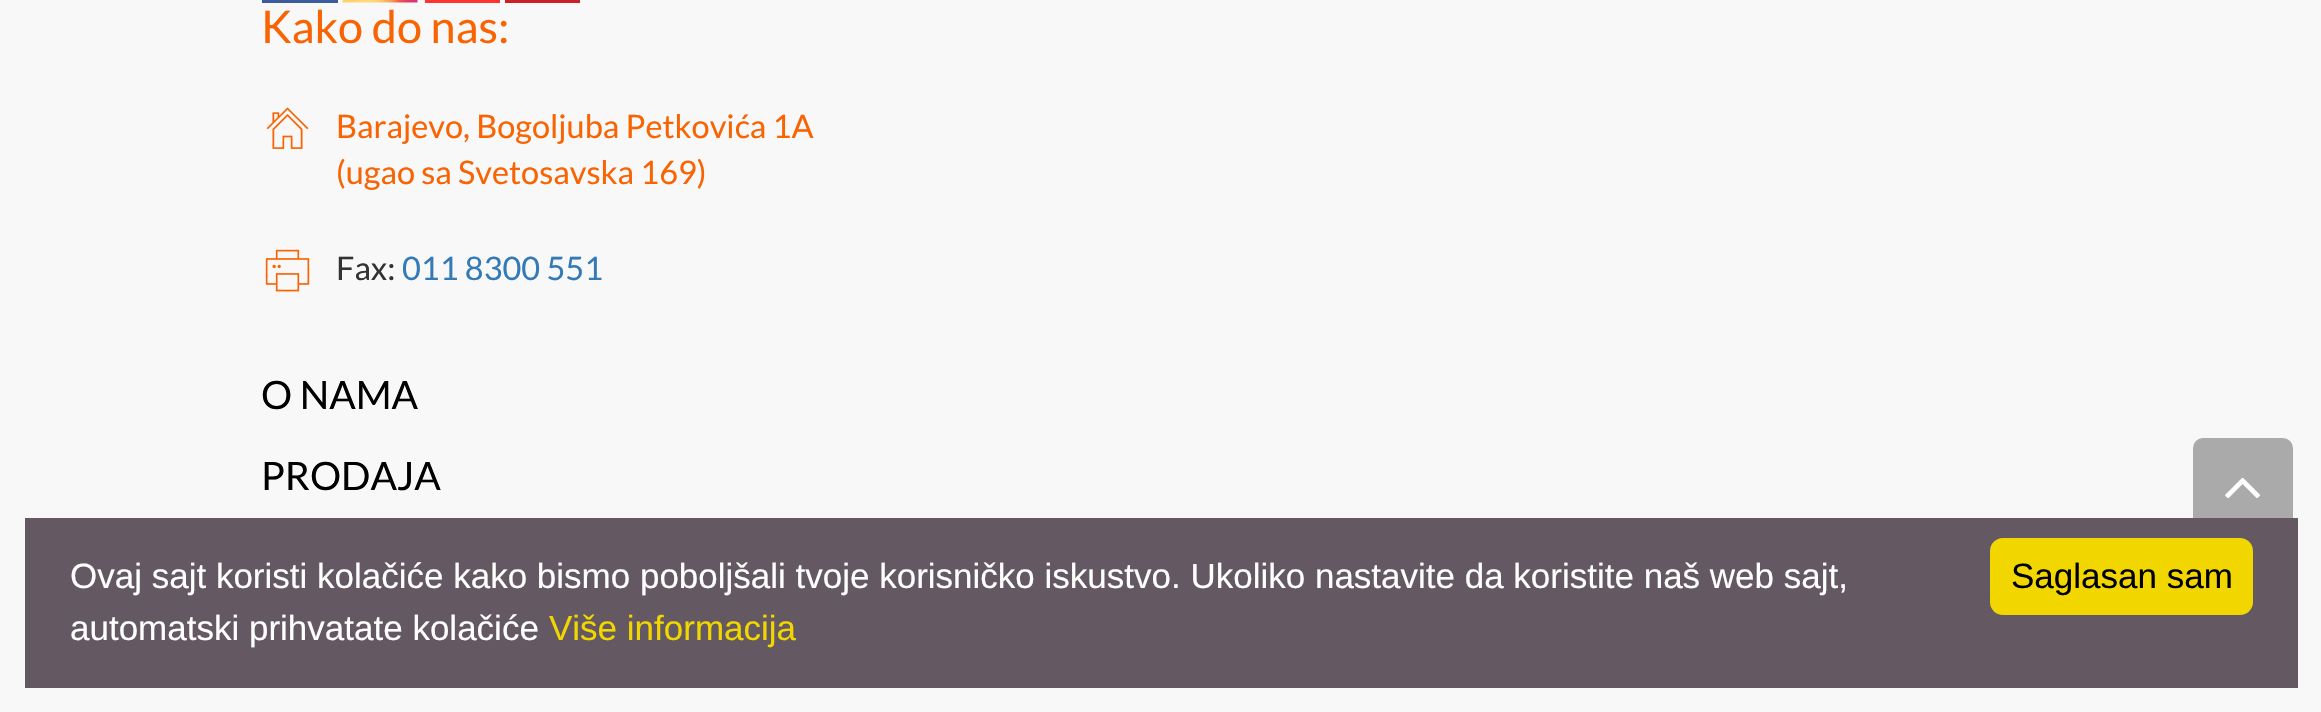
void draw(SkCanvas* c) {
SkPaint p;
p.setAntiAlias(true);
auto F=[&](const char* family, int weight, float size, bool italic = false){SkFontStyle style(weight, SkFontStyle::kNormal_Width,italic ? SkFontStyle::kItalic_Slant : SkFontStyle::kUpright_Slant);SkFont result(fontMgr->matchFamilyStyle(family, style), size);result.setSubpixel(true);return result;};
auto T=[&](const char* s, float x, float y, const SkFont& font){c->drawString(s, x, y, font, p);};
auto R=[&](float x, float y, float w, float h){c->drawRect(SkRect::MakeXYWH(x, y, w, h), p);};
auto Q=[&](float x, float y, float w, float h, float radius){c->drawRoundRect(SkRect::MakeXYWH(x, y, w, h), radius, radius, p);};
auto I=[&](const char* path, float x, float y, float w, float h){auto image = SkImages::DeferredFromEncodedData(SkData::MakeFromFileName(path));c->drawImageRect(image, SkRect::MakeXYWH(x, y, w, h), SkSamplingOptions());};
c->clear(0xfff8f8f8);
p.setColor(0xff3c5b9b);
R(262,0,76,3);
I("1.png",342,0,76,3);
p.setColor(0xfffe3432);
R(425,0,75,3);
p.setColor(0xffcb2027);
R(505,0,75,3);
auto f1 = F("Lato",400,45);
p.setColor(0xfff96302);
T("Kako do nas:",261,43,f1);
I("2.png",266,107,43,42);
auto f2 = F("Lato",400,32.5);
T("Barajevo, Bogoljuba Petkovića 1A",336,138,f2);
T("(ugao sa Svetosavska 169)",336,184,f2);
I("3.png",265,249,45,43);
p.setColor(0xff333333);
T("Fax:",336,280,f2);
p.setColor(0xff337ab7);
T("011 8300 551",402,280,f2);
auto f3 = F("Lato",400,39);
p.setColor(0xff000000);
T("O NAMA",261,409,f3);
T("PRODAJA",261,490,f3);
p.setColor(0xffaaaaaa);
Q(2193,438,100,100,10);
I("4.png",2225,477,35,21);
p.setColor(0xff645862);
R(25,518,2273,170);
auto f4 = F("Liberation Sans",400,35);
p.setColor(0xffffffff);
T("Ovaj sajt koristi kolačiće kako bismo poboljšali tvoje korisničko iskustvo. Ukoliko nastavite da koristite naš web sajt,",70,588,f4);
T("automatski prihvatate kolačiće",70,640,f4);
p.setColor(0xfff1d600);
T("Više informacija",549,640,f4);
Q(1990,538,263,77,13);
p.setColor(0xff000000);
T("Saglasan sam",2011,588,f4);
}
